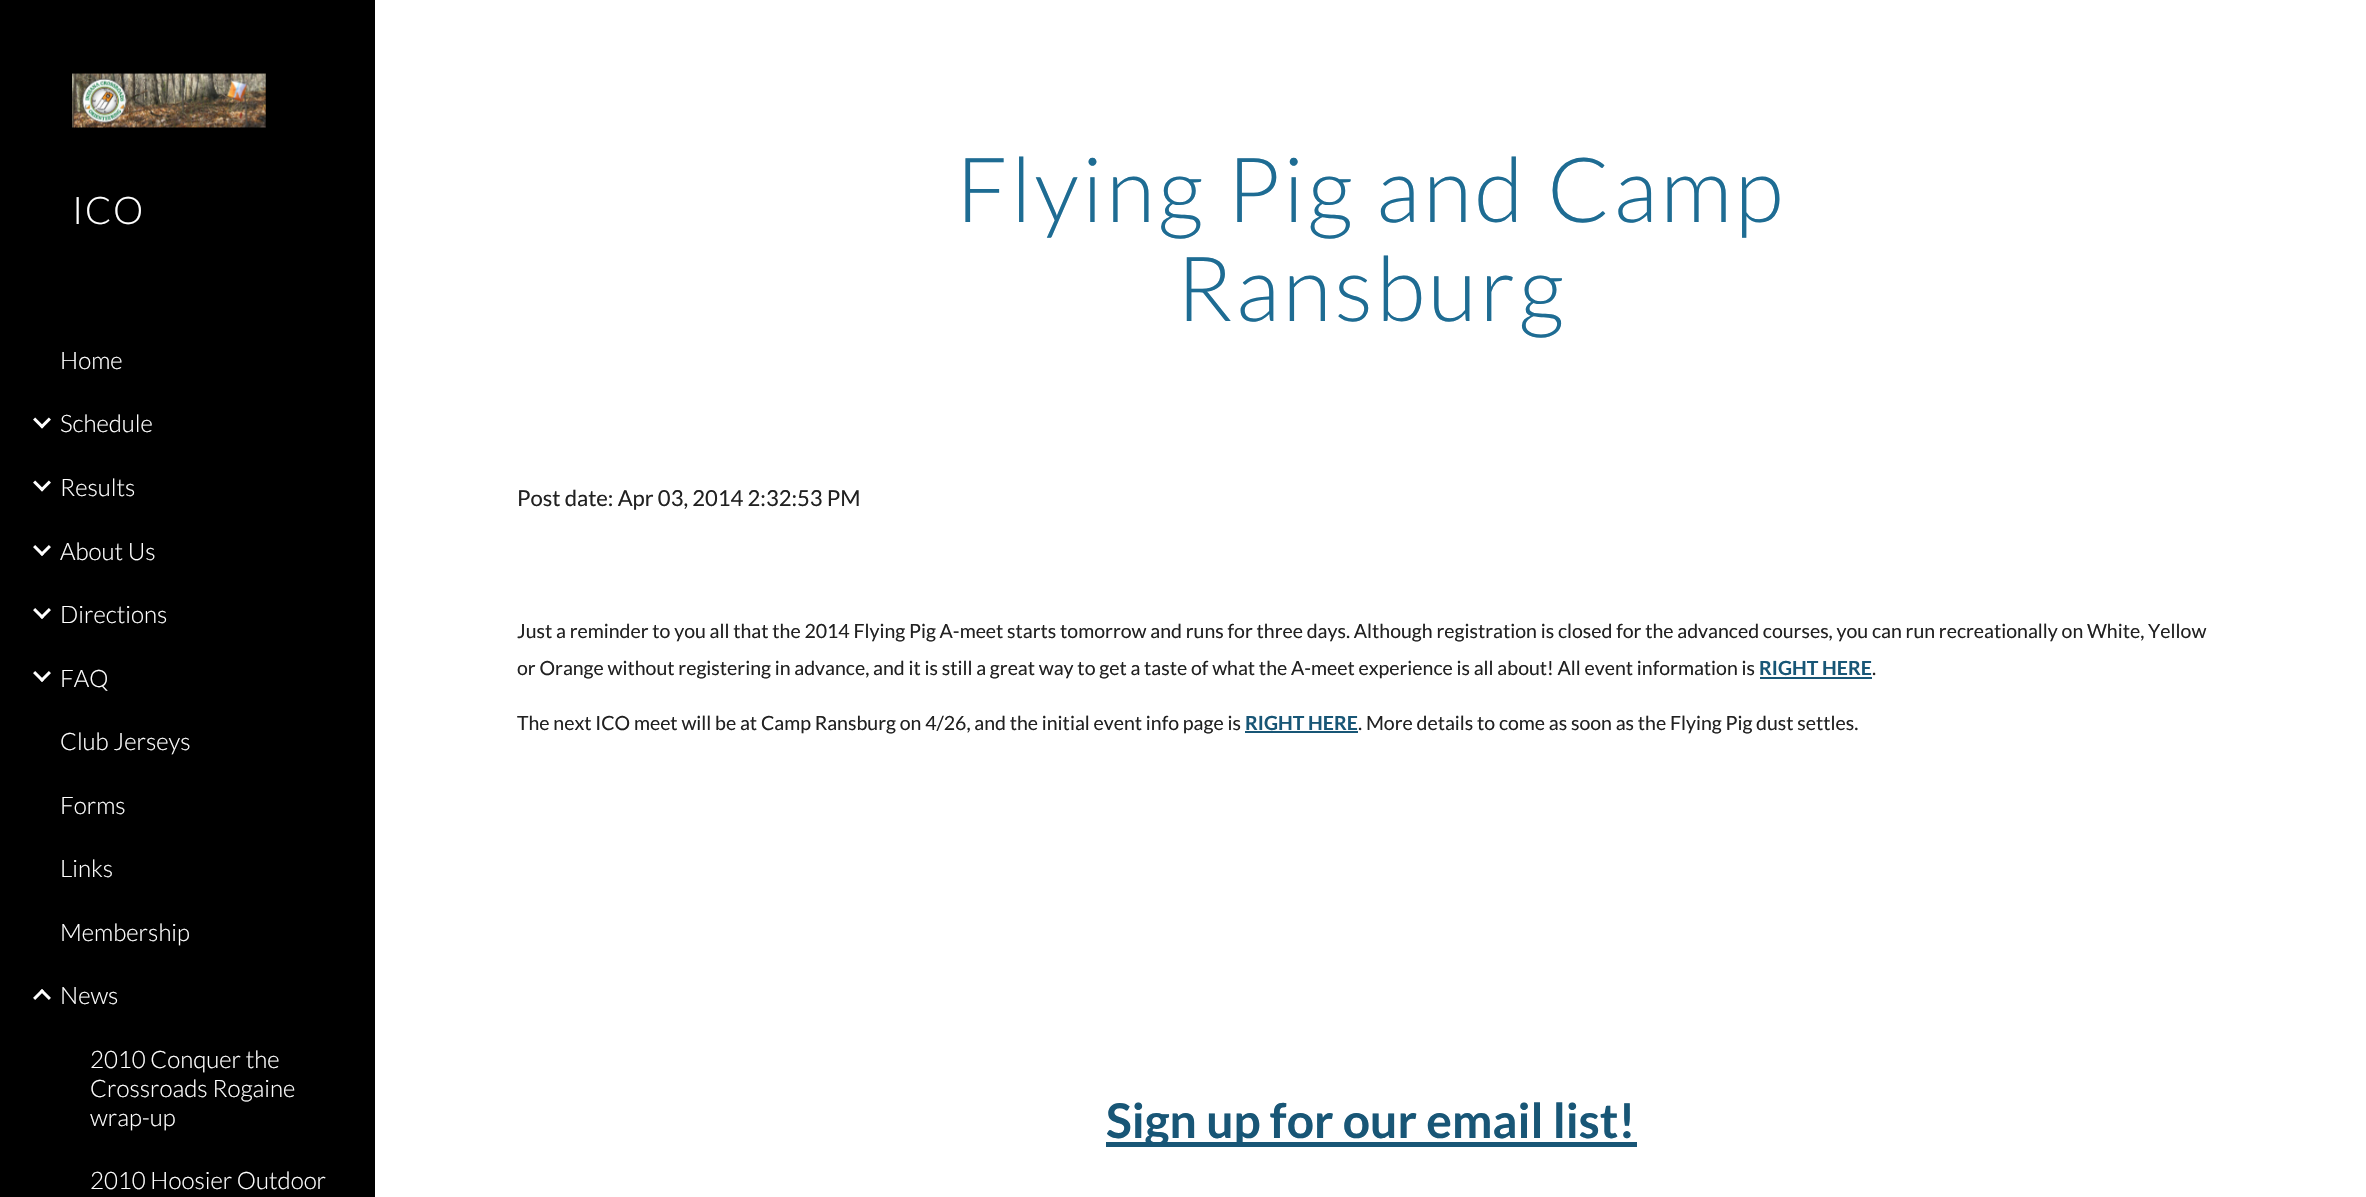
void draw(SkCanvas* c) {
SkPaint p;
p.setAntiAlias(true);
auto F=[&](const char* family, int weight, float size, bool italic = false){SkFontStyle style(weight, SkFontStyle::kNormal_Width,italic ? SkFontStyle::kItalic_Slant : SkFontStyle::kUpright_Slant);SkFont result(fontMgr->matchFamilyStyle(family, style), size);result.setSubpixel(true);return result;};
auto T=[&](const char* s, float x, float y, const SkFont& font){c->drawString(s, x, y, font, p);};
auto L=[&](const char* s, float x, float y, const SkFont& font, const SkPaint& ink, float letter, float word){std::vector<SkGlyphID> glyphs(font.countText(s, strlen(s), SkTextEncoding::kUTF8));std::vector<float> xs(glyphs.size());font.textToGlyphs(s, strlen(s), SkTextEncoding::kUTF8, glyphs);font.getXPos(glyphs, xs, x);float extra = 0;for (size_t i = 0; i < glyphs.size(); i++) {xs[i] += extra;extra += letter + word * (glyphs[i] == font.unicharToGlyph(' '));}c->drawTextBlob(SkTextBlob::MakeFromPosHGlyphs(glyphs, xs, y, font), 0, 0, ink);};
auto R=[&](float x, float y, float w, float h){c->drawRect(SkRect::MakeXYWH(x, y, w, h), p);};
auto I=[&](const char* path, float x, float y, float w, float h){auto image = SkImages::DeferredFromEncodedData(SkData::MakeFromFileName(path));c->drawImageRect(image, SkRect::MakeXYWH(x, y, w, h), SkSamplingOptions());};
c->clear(0xffffffff);
p.setColor(0xff000000);
R(0,0,375,1197);
I("1.png",72,73,194,55);
auto f1 = F("Lato",300,38);
p.setColor(0xffffffff);
L("ICO",72,224,f1,p,1.5,0);
auto f2 = F("Lato",300,24);
T("Home",60,369,f2);
I("2.png",33,417,18,12);
T("Schedule",60,432,f2);
I("2.png",33,480,18,12);
T("Results",60,496,f2);
I("3.png",33,545,18,11);
T("About Us",60,560,f2);
I("3.png",33,608,18,11);
T("Directions",60,623,f2);
I("3.png",33,671,18,11);
T("FAQ",60,687,f2);
T("Club Jerseys",60,750,f2);
T("Forms",60,814,f2);
T("Links",60,877,f2);
T("Membership",60,941,f2);
I("4.png",33,989,18,11);
T("News",60,1004,f2);
T("2010 Conquer the",90,1068,f2);
T("Crossroads Rogaine",90,1097,f2);
T("wrap-up",90,1126,f2);
T("2010 Hoosier Outdoor",90,1189,f2);
auto f3 = F("Lato",300,90);
p.setColor(0xff1e6c93);
L("Flying Pig and Camp",956,222,f3,p,3,0);
L("Ransburg",1176,321,f3,p,3,0);
auto f4 = F("Lato",400,22);
p.setColor(0xff212121);
T("Post date: Apr 03, 2014 2:32:53 PM",517,506,f4);
auto f5 = F("Lato",400,19.5);
T("Just a reminder to you all that the 2014 Flying Pig A-meet starts tomorrow and runs for three days. Although registration is closed for the advanced courses, you can run recreationally on White, Yellow",517,638,f5);
T("or Orange without registering in advance, and it is still a great way to get a taste of what the A-meet experience is all about! All event information is",517,675,f5);
auto f6 = F("Lato",700,19.5);
p.setColor(0xff185676);
T("RIGHT HERE",1759,675,f6);
R(1760,677,112,2);
p.setColor(0xff212121);
T(".",1872,675,f5);
T("The next ICO meet will be at Camp Ransburg on 4/26, and the initial event info page is",517,730,f5);
p.setColor(0xff185676);
T("RIGHT HERE",1245,730,f6);
R(1245,731,113,2);
p.setColor(0xff212121);
T(". More details to come as soon as the Flying Pig dust settles.",1358,730,f5);
p.setColor(0xff185676);
R(1106,1142,531,5);
auto f7 = F("Lato",700,48);
T("Sign up for our email list!",1106,1138,f7);
}
